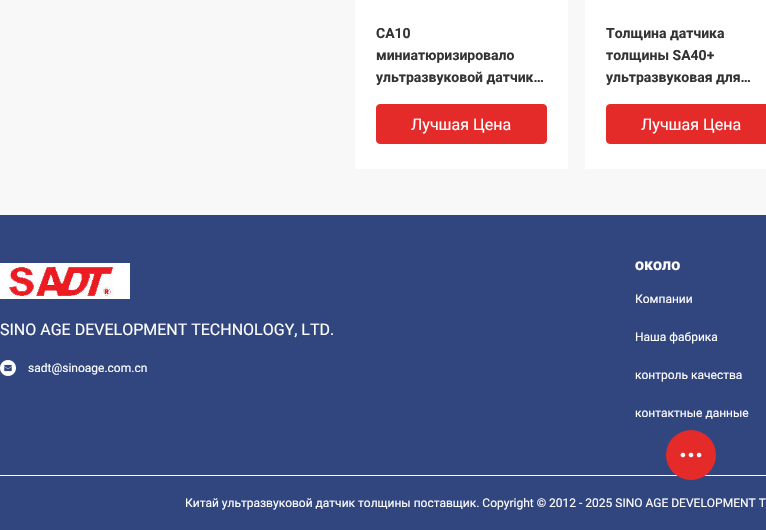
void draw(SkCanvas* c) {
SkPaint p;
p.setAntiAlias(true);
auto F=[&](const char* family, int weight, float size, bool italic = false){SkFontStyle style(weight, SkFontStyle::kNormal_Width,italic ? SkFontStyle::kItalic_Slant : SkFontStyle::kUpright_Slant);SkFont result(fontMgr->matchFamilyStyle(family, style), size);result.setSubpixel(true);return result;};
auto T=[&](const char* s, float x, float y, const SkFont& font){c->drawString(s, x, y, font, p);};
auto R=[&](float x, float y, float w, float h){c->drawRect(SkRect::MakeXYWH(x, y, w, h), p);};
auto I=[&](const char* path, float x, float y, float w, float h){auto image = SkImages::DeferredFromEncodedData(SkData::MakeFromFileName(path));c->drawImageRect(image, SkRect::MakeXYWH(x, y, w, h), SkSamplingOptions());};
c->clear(0xfff8f8f8);
p.setColor(0xffffffff);
R(355,0,213,169);
auto f1 = F("Roboto",700,14);
p.setColor(0xff333333);
T("СА10",376,38,f1);
T("миниатюризировало",376,60,f1);
T("ультразвуковой датчик…",376,82,f1);
p.setColor(0xffe52a2a);
c->drawRoundRect(SkRect::MakeXYWH(376.5,104.5,170,39),3.5,3.5,p);
p.setStroke(true);
p.setStrokeWidth(1);
c->drawRoundRect(SkRect::MakeXYWH(376.5,104.5,170,39),3.5,3.5,p);
auto f2 = F("Roboto",400,16);
p.setStroke(false);
p.setColor(0xffffffff);
T("Лучшая Цена",411,130,f2);
R(585,0,181,169);
p.setColor(0xff333333);
T("Толщина датчика",606,38,f1);
T("толщины SA40+",606,60,f1);
T("ультразвуковая для…",606,82,f1);
p.setColor(0xffe52a2a);
c->drawRoundRect(SkRect::MakeXYWH(606.5,104.5,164,39),3.5,3.5,p);
p.setStroke(true);
c->drawRoundRect(SkRect::MakeXYWH(606.5,104.5,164,39),3.5,3.5,p);
p.setStroke(false);
p.setColor(0xffffffff);
T("Лучшая Цена",641,130,f2);
p.setColor(0xff31457e);
R(0,215,766,315);
I("1.png",0,263,130,36);
p.setColor(0xffffffff);
T("SINO AGE DEVELOPMENT TECHNOLOGY, LTD.",0,335,f2);
I("2.png",0,360,16,16);
auto f3 = F("Roboto",400,12);
T("sadt@sinoage.com.cn",28,372,f3);
auto f4 = F("Roboto",700,16);
T("около",635,270,f4);
T("Компании",635,303,f3);
T("Наша фабрика",635,341,f3);
T("контроль качества",635,379,f3);
T("контактные данные",635,417,f3);
R(0,475,766,1);
T("Китай ультразвуковой датчик толщины поставщик. Copyright © 2012 - 2025 SINO AGE DEVELOPMENT T",185,507,f3);
p.setColor(0xffe52a2a);
c->drawCircle(691,455,25,p);
I("3.png",680,452,22,6);
}
